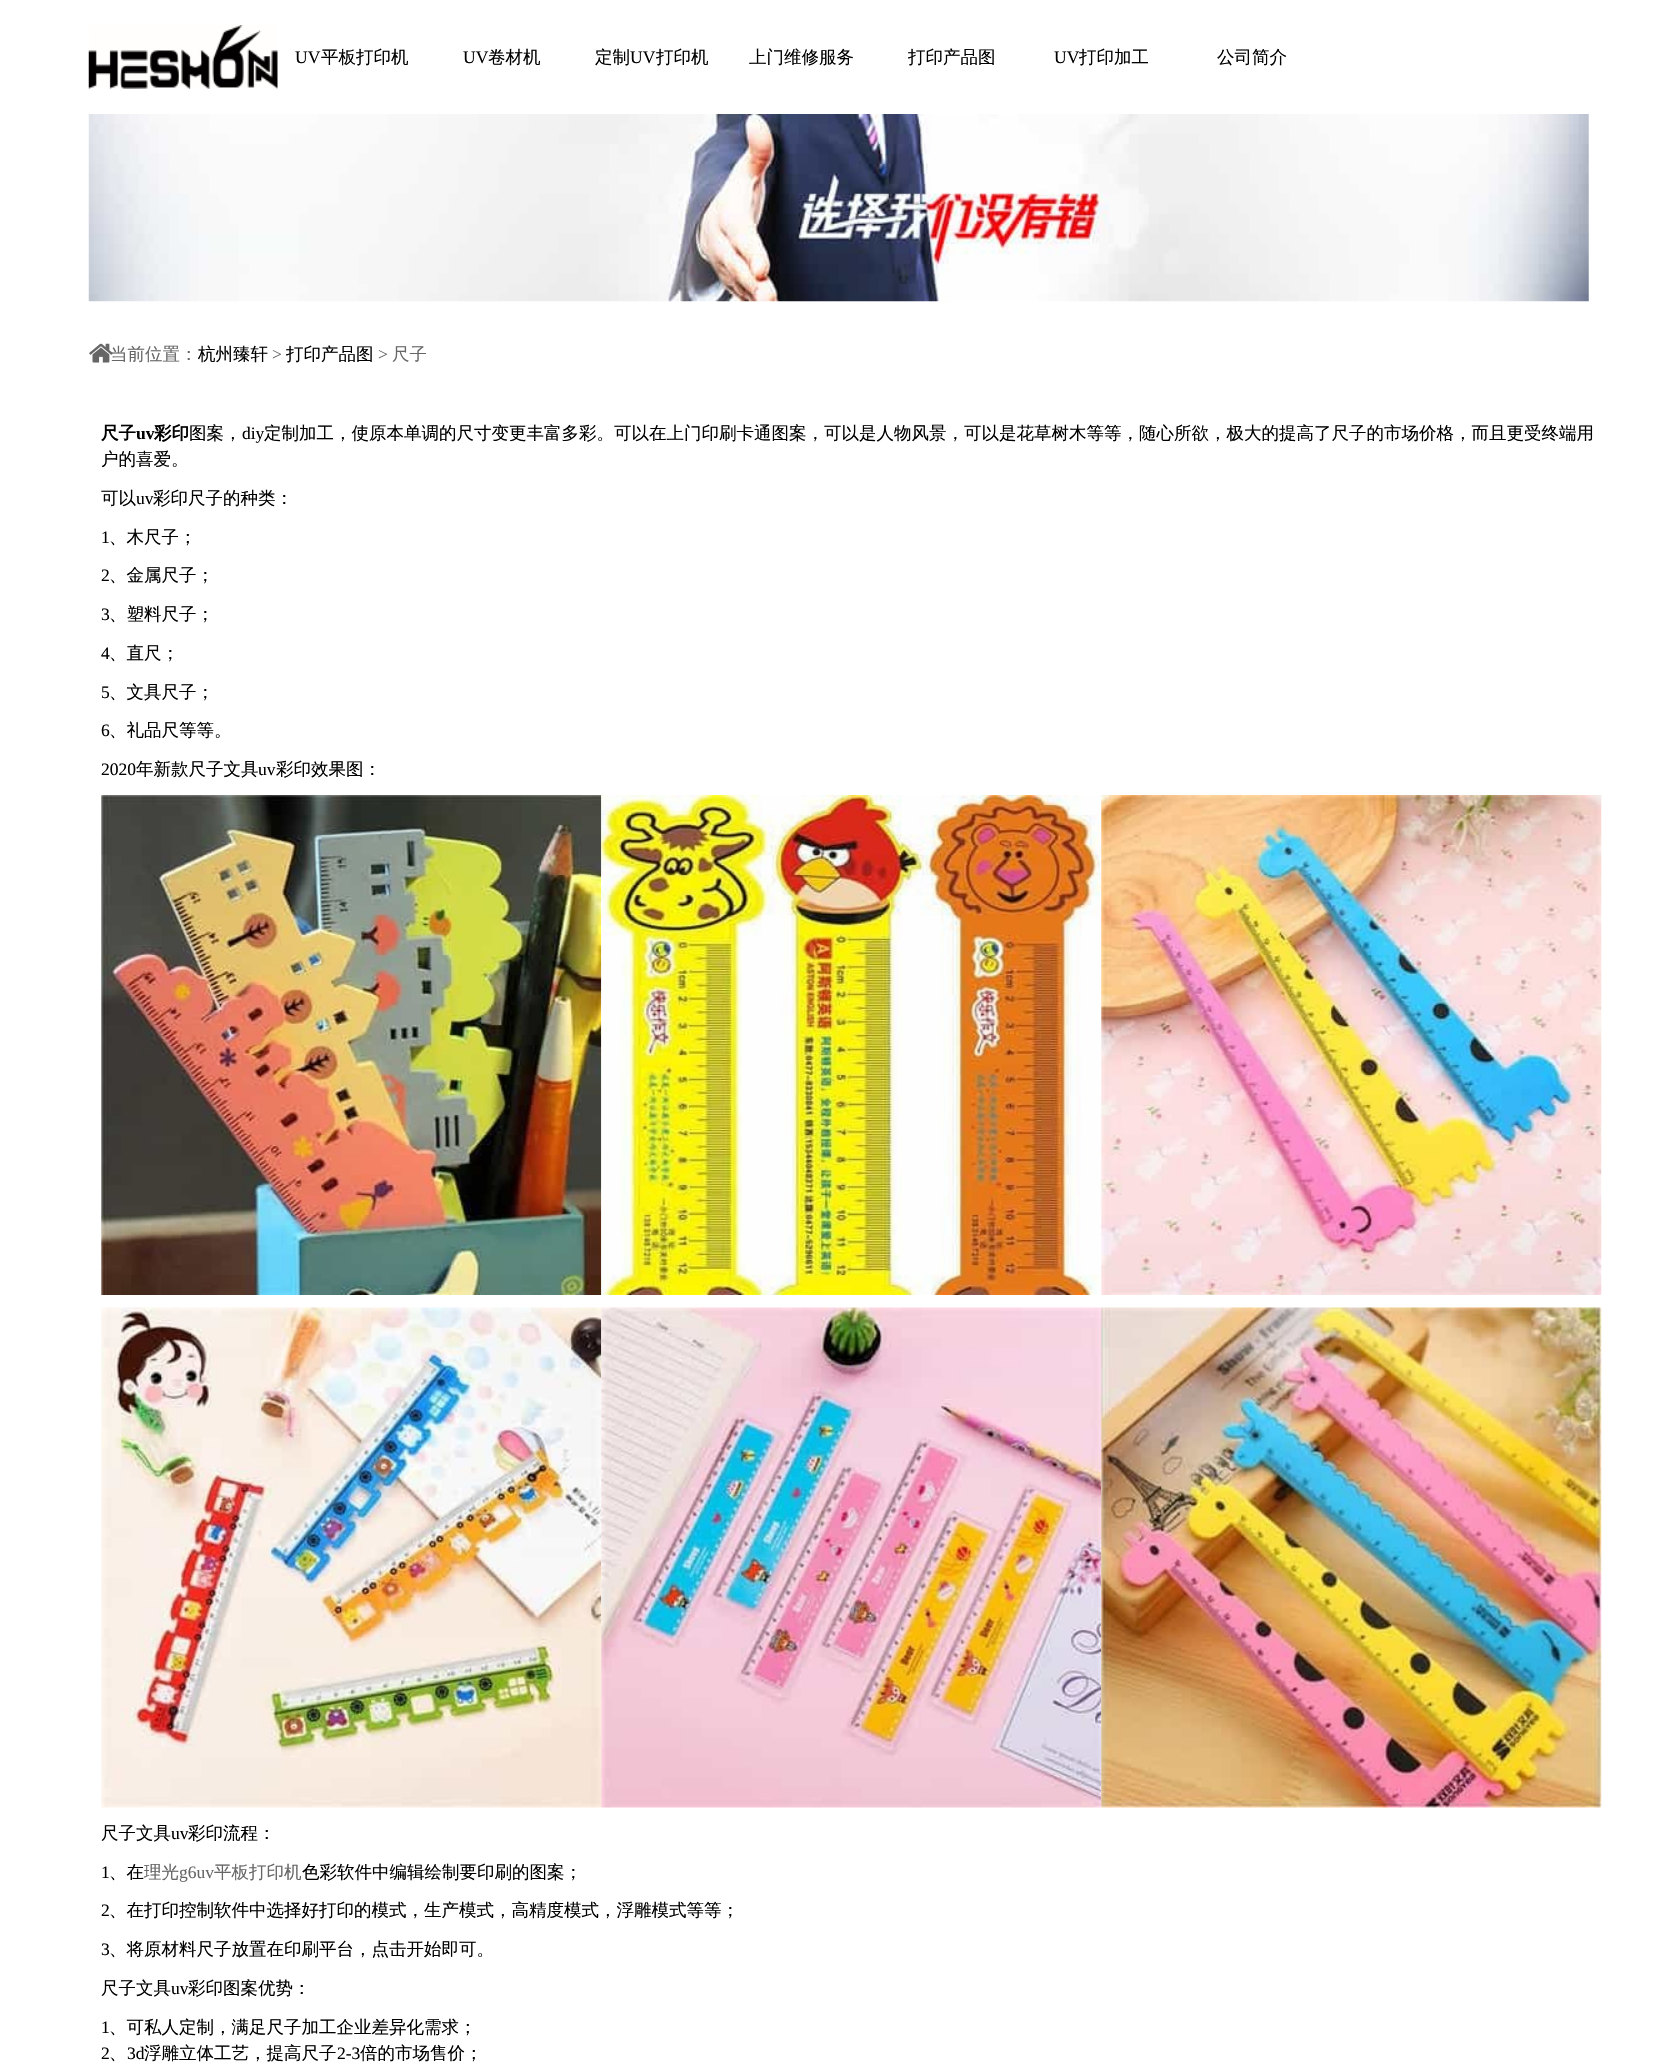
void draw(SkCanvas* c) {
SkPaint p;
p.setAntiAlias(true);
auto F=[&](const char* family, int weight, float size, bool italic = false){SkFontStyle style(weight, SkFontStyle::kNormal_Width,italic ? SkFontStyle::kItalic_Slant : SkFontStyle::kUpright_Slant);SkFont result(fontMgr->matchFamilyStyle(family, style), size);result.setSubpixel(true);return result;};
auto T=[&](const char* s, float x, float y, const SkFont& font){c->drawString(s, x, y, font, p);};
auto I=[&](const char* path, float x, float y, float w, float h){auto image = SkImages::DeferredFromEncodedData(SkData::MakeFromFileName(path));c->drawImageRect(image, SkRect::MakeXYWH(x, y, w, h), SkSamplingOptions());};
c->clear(0xffffffff);
I("1.png",88,25,190,64);
auto f1 = F("Liberation Serif",400,17.5);
p.setColor(0xff000000);
T("UV",295,63,f1);
auto f2 = F("WenQuanYi Zen Hei",500,17.5);
T("平板打印机",321,63,f2);
T("UV",463,63,f1);
T("卷材机",488,63,f2);
T("定制",595,63,f2);
T("UV",630,63,f1);
T("打印机",656,63,f2);
T("上门维修服务",749,63,f2);
T("打印产品图",908,63,f2);
T("UV",1054,63,f1);
T("打印加工",1079,63,f2);
T("公司简介",1217,63,f2);
I("2.png",88,114,1501,188);
p.setColor(0xff666666);
T("当前位置：",110,360,f2);
I("3.png",89,343,24,20);
p.setColor(0xff000000);
T("杭州臻轩",198,360,f2);
p.setColor(0xff666666);
T(">",272,360,f1);
p.setColor(0xff000000);
T("打印产品图",286,360,f2);
p.setColor(0xff666666);
T(">",378,360,f1);
T("尺子",392,360,f2);
auto f3 = F("WenQuanYi Zen Hei",700,17.5);
p.setColor(0xff000000);
T("尺子",101,439,f3);
auto f4 = F("Liberation Serif",700,17.5);
T("uv",136,439,f4);
T("彩印",154,439,f3);
T("图案，",189,439,f2);
T("diy",242,439,f1);
T("定制加工，使原本单调的尺寸变更丰富多彩。可以在上门印刷卡通图案，可以是人物风景，可以是花草树木等等，随心所欲，极大的提高了尺子的市场价格，而且更受终端用",264,439,f2);
T("户的喜爱。",101,465,f2);
T("可以",101,504,f2);
T("uv",136,504,f1);
T("彩印尺子的种类：",153,504,f2);
T("1",101,543,f1);
T("、木尺子；",109,543,f2);
T("2",101,581,f1);
T("、金属尺子；",109,581,f2);
T("3",101,620,f1);
T("、塑料尺子；",109,620,f2);
T("4",101,659,f1);
T("、直尺；",109,659,f2);
T("5",101,698,f1);
T("、文具尺子；",109,698,f2);
T("6",101,736,f1);
T("、礼品尺等等。",109,736,f2);
T("2020",101,775,f1);
T("年新款尺子文具",136,775,f2);
T("uv",258,775,f1);
T("彩印效果图：",276,775,f2);
I("4.png",101,795,501,500);
I("5.png",601,795,501,500);
I("6.png",1101,795,501,500);
I("7.png",101,1307,501,501);
I("8.png",601,1307,501,501);
I("9.png",1101,1307,501,501);
T("尺子文具",101,1839,f2);
T("uv",171,1839,f1);
T("彩印流程：",188,1839,f2);
T("1",101,1878,f1);
T("、在",109,1878,f2);
p.setColor(0xff666666);
T("理光",144,1878,f2);
T("g6uv",179,1878,f1);
T("平板打印机",214,1878,f2);
p.setColor(0xff000000);
T("色彩软件中编辑绘制要印刷的图案；",302,1878,f2);
T("2",101,1916,f1);
T("、在打印控制软件中选择好打印的模式，生产模式，高精度模式，浮雕模式等等；",109,1916,f2);
T("3",101,1955,f1);
T("、将原材料尺子放置在印刷平台，点击开始即可。",109,1955,f2);
T("尺子文具",101,1994,f2);
T("uv",171,1994,f1);
T("彩印图案优势：",188,1994,f2);
T("1",101,2033,f1);
T("、可私人定制，满足尺子加工企业差异化需求；",109,2033,f2);
T("2",101,2059,f1);
T("、",109,2059,f2);
T("3d",127,2059,f1);
T("浮雕立体工艺，提高尺子",144,2059,f2);
T("2-3",337,2059,f1);
T("倍的市场售价；",360,2059,f2);
}
